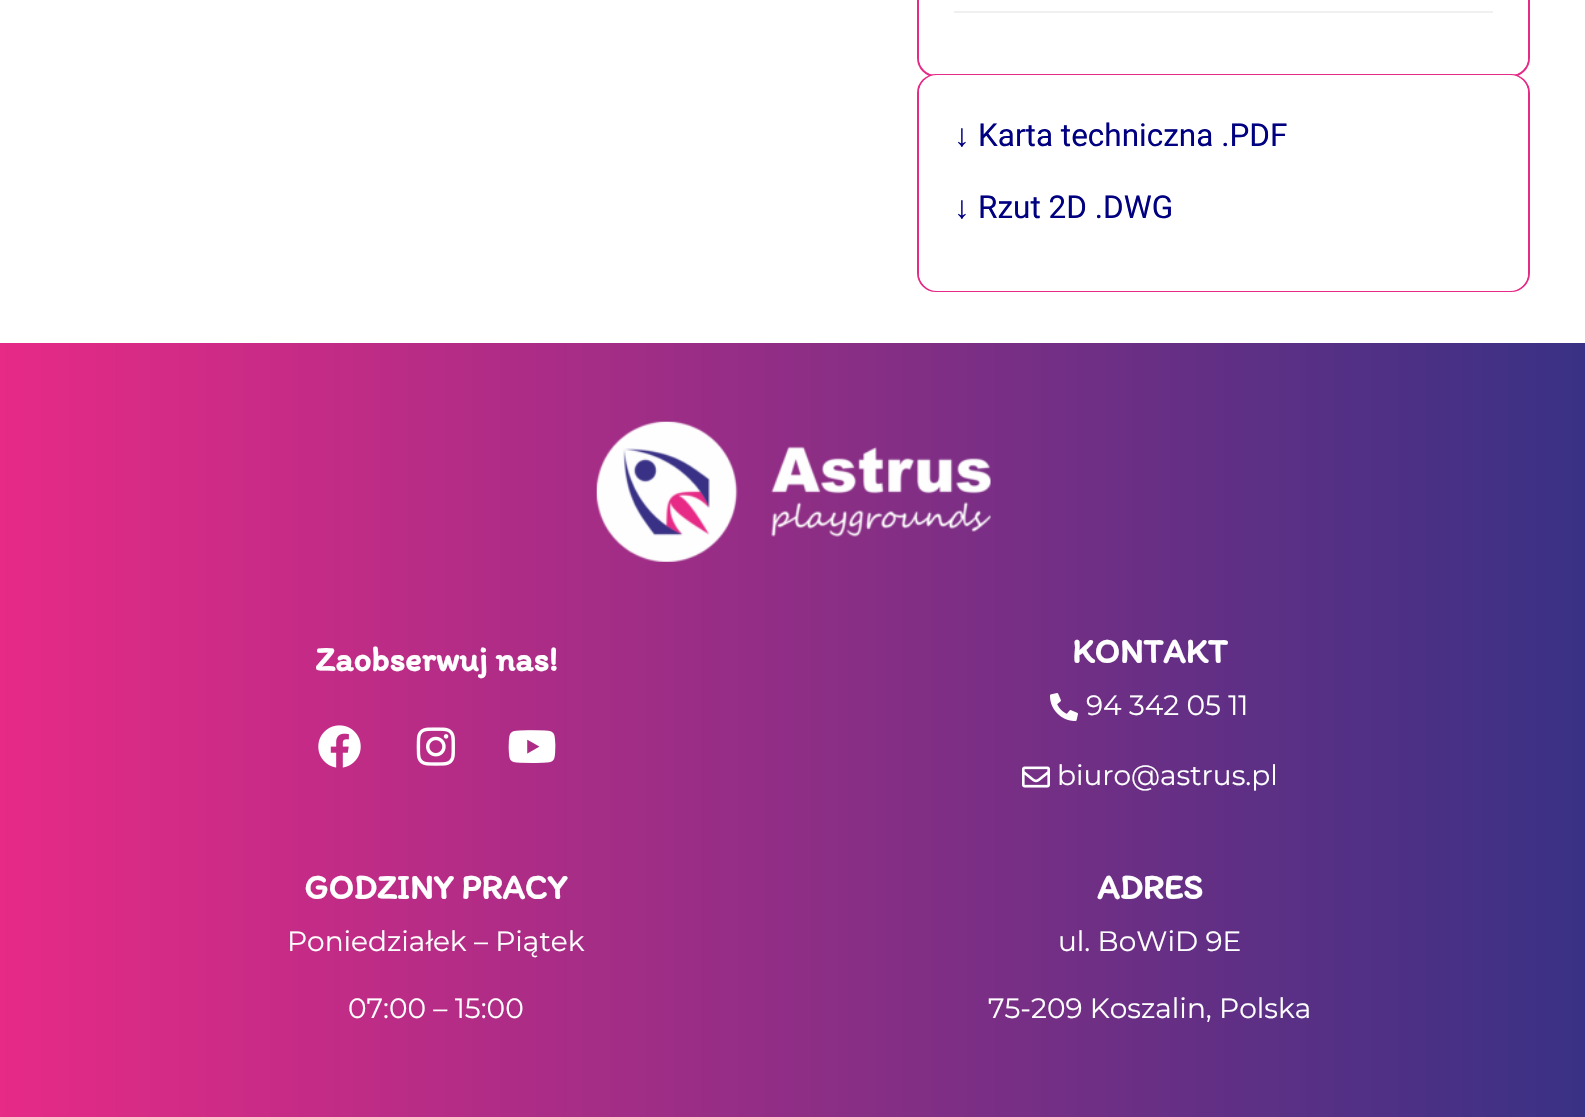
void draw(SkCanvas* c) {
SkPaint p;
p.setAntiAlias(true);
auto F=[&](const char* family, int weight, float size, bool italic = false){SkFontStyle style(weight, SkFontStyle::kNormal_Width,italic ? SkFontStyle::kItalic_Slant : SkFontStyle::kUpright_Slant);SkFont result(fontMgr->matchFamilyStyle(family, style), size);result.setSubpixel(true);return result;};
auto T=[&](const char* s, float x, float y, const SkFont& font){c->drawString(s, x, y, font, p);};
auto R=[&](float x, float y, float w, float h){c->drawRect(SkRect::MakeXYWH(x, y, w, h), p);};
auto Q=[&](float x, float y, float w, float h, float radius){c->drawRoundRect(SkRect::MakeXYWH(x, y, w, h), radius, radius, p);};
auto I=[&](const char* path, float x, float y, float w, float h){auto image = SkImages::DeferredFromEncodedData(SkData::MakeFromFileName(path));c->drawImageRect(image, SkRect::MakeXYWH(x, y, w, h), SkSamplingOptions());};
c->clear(0xffffffff);
p.setStroke(true);
p.setStrokeWidth(2);
p.setColor(0xffe62a86);
c->drawRoundRect(SkRect::MakeXYWH(918,-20,611,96),18,18,p);
p.setStroke(false);
p.setColor(0xffffffff);
Q(919,-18,609,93,18);
p.setColor(0xfff0f0f0);
R(954,11,539,2);
p.setStroke(true);
p.setColor(0xffe62a86);
c->drawRoundRect(SkRect::MakeXYWH(918,75,611,216),18,18,p);
p.setStroke(false);
p.setColor(0xffffffff);
Q(919,75,609,216,18);
auto f1 = F("Liberation Sans",400,31.5);
p.setColor(0xff000080);
T("↓",954,146,f1);
auto f2 = F("Roboto",400,31.5);
T("Karta techniczna .PDF",978,146,f2);
T("↓",954,218,f1);
T("Rzut 2D .DWG",978,218,f2);
{
const SkColor colors[] = {0xffe62a86,0xff393185};
const float stops[] = {0,1};
const SkPoint ends[] = {{0,723}, {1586,723}};
p.setShader(SkGradientShader::MakeLinear(ends, colors, stops, 2, SkTileMode::kClamp));
p.setAlpha(255);
}
R(0,343,1585,760);
I("1.png",596,421,395,141);
auto f3 = F("Itim",700,35);
p.setShader(nullptr);
p.setColor(0xffffffff);
T("Zaobserwuj nas!",315,671,f3);
I("2.png",318,725,43,43);
I("3.png",416,727,39,39);
I("4.png",508,730,48,33);
T("KONTAKT",1072,663,f3);
I("5.png",1050,693,28,28);
auto f4 = F("Montserrat",400,28);
T("94 342 05 11",1086,715,f4);
I("6.png",1022,766,28,22);
T("biuro@astrus.pl",1057,785,f4);
T("GODZINY PRACY",304,899,f3);
T("Poniedziałek – Piątek",287,951,f4);
T("07:00 – 15:00",348,1018,f4);
T("ADRES",1097,899,f3);
T("ul. BoWiD 9E",1058,951,f4);
T("75-209 Koszalin, Polska",988,1018,f4);
{
const SkColor colors[] = {0xffe62a86,0xff393185};
const float stops[] = {0,1};
const SkPoint ends[] = {{0,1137}, {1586,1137}};
p.setShader(SkGradientShader::MakeLinear(ends, colors, stops, 2, SkTileMode::kClamp));
p.setAlpha(255);
}
R(0,1103,1585,14);
}
